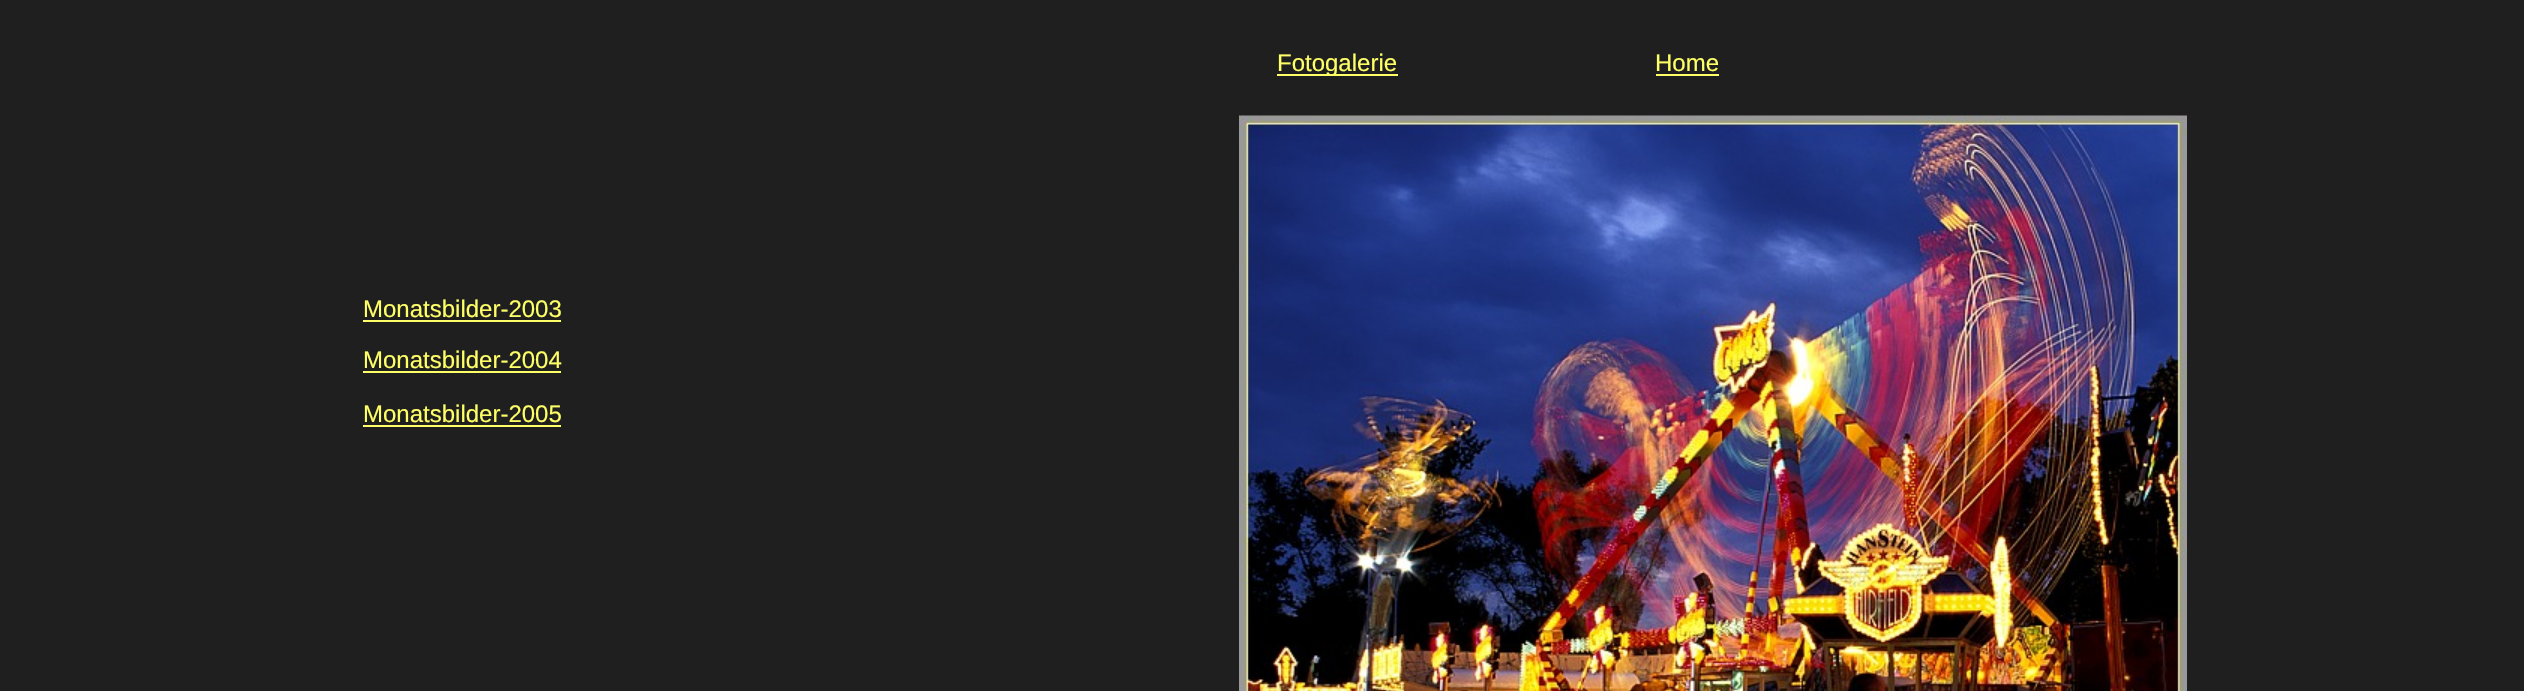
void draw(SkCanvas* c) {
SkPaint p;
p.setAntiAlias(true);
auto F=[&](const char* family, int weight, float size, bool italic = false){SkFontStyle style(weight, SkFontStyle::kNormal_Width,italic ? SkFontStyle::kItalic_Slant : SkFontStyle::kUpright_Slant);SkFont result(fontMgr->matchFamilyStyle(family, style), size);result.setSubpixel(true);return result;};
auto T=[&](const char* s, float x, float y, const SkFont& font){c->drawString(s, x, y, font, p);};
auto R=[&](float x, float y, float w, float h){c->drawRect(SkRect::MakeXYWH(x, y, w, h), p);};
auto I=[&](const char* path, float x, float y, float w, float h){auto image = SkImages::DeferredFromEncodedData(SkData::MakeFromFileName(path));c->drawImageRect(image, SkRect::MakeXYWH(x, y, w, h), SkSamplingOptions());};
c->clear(0xff1f1f1f);
p.setColor(0xffffff66);
R(1277,74,121,2);
auto f1 = F("Liberation Sans",400,24);
T("Fotogalerie",1277,71,f1);
T("Home",1655,71,f1);
R(1656,74,63,2);
T("Monatsbilder-2003",363,317,f1);
R(363,320,198,2);
T("Monatsbilder-2004",363,368,f1);
R(363,371,198,2);
T("Monatsbilder-2005",363,422,f1);
R(363,425,198,2);
I("1.png",1239,115,948,576);
}
